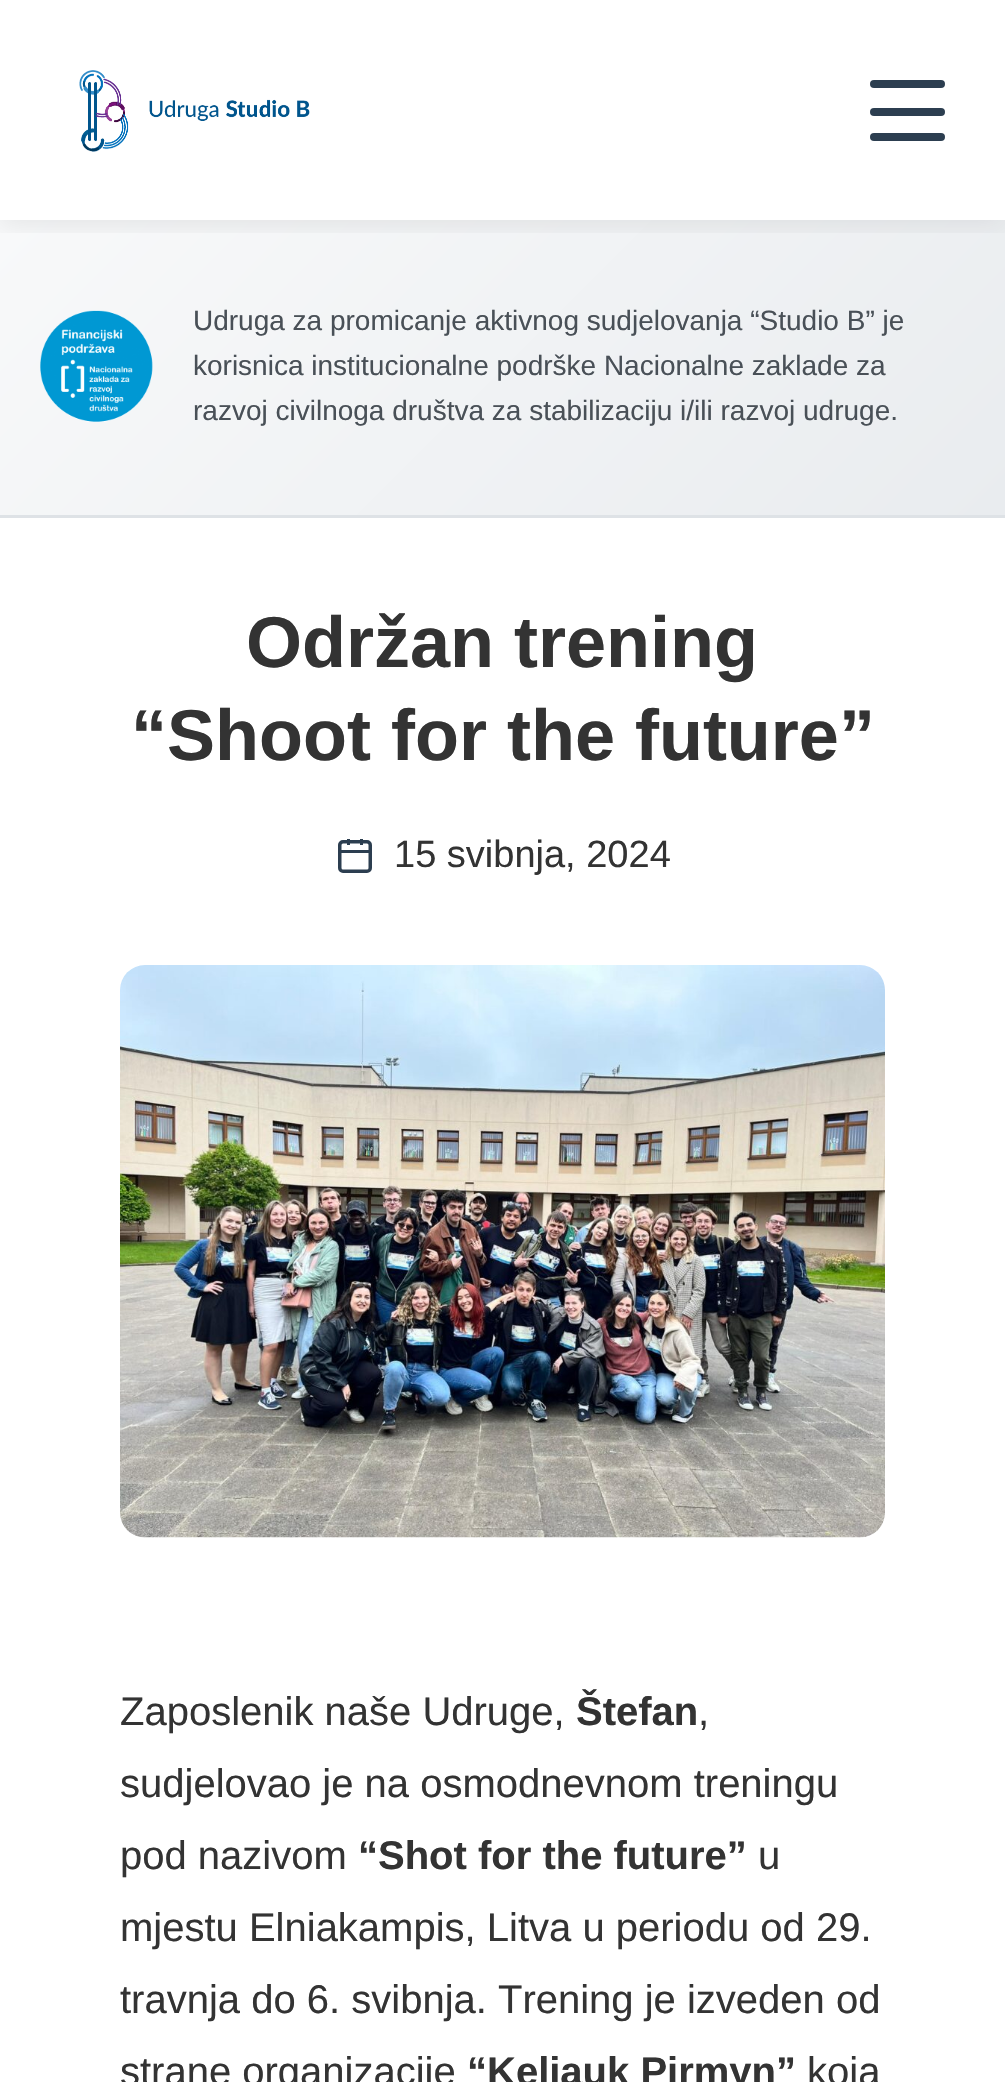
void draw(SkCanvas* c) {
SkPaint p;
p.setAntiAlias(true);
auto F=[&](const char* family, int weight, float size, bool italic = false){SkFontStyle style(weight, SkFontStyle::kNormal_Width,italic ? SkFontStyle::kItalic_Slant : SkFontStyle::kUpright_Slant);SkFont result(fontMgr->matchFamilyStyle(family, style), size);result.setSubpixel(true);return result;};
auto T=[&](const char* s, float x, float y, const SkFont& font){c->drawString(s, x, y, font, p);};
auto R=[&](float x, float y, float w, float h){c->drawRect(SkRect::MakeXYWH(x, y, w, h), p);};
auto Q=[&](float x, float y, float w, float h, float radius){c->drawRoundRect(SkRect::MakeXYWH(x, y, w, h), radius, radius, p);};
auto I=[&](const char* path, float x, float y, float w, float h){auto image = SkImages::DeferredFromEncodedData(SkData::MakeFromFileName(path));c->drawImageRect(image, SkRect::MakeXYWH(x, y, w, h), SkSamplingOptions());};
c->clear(0xffffffff);
{
const SkColor colors[] = {0xfff8f9fa,0xffe9ecef};
const float stops[] = {0,1};
const SkPoint ends[] = {{178,43}, {828,693}};
p.setShader(SkGradientShader::MakeLinear(ends, colors, stops, 2, SkTileMode::kClamp));
p.setAlpha(255);
}
R(0,220,1005,295);
c->save();
c->clipRect(SkRect::MakeXYWH(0,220,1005,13));
p.setShader(nullptr);
p.setColor(0x14000000);
p.setMaskFilter(SkMaskFilter::MakeBlur(kNormal_SkBlurStyle, 12.5));
c->drawRect(SkRect::MakeXYWH(0,5,1005,220),p);
p.setMaskFilter(nullptr);
c->restore();
I("1.png",79,70,231,82);
p.setColor(0xff2c3e50);
Q(870,80,75,8,4);
Q(870,108,75,8,4);
Q(870,133,75,8,4);
p.setColor(0xffdee2e6);
R(0,515,1005,3);
I("2.png",40,310,113,112);
auto f1 = F("Liberation Sans",400,28);
p.setColor(0xff495057);
T("Udruga za promicanje aktivnog sudjelovanja “Studio B” je",193,330,f1);
T("korisnica institucionalne podrške Nacionalne zaklade za",193,375,f1);
T("razvoj civilnoga društva za stabilizaciju i/ili razvoj udruge.",193,420,f1);
auto f2 = F("Liberation Sans",700,72);
p.setColor(0xff333333);
T("Održan trening",246,667,f2);
T("“Shoot for the future”",131,760,f2);
p.setStroke(true);
p.setStrokeWidth(3.5);
p.setColor(0xff2c3e50);
c->drawRoundRect(SkRect::MakeXYWH(339.75,841.75,30.5,29.5),3.25,3.25,p);
p.setStroke(false);
R(360,839,3,6);
R(347,839,3,6);
R(340,850,30,3);
auto f3 = F("Liberation Sans",400,38);
p.setColor(0xff333333);
T("15 svibnja, 2024",394,867,f3);
I("3.png",120,965,765,573);
auto f4 = F("Liberation Sans",400,40);
T("Zaposlenik naše Udruge,",120,1725,f4);
auto f5 = F("Liberation Sans",700,40);
T("Štefan",576,1725,f5);
T(",",698,1725,f4);
T("sudjelovao je na osmodnevnom treningu",120,1797,f4);
T("pod nazivom",120,1869,f4);
T("“Shot for the future”",358,1869,f5);
T("u",758,1869,f4);
T("mjestu Elniakampis, Litva u periodu od 29.",120,1941,f4);
T("travnja do 6. svibnja. Trening je izveden od",120,2013,f4);
T("strane organizacije",120,2085,f4);
T("“Keliauk Pirmyn”",467,2085,f5);
T("koja",807,2085,f4);
}
